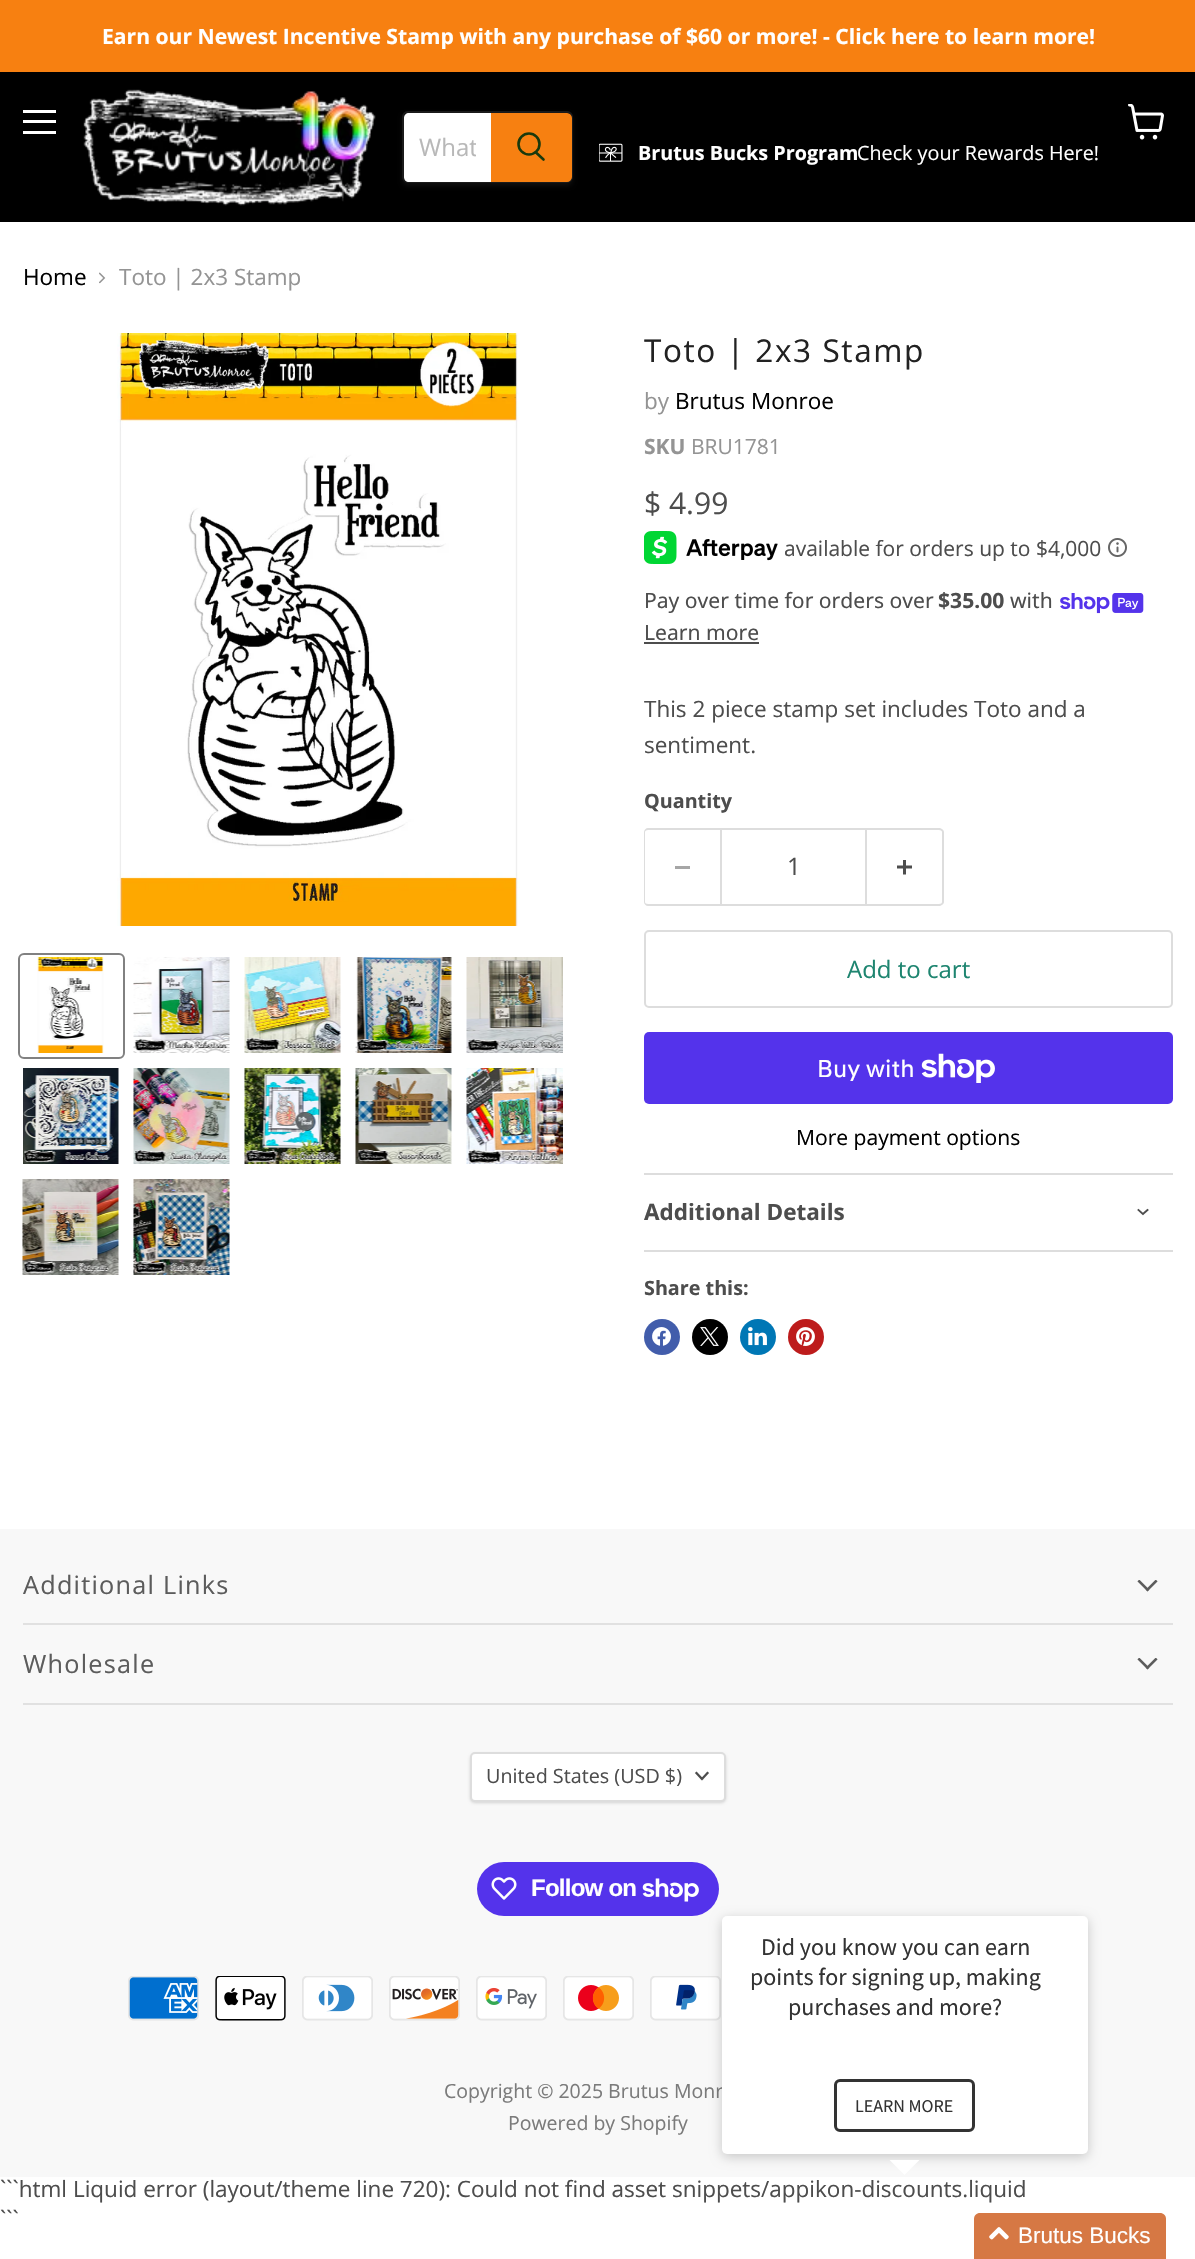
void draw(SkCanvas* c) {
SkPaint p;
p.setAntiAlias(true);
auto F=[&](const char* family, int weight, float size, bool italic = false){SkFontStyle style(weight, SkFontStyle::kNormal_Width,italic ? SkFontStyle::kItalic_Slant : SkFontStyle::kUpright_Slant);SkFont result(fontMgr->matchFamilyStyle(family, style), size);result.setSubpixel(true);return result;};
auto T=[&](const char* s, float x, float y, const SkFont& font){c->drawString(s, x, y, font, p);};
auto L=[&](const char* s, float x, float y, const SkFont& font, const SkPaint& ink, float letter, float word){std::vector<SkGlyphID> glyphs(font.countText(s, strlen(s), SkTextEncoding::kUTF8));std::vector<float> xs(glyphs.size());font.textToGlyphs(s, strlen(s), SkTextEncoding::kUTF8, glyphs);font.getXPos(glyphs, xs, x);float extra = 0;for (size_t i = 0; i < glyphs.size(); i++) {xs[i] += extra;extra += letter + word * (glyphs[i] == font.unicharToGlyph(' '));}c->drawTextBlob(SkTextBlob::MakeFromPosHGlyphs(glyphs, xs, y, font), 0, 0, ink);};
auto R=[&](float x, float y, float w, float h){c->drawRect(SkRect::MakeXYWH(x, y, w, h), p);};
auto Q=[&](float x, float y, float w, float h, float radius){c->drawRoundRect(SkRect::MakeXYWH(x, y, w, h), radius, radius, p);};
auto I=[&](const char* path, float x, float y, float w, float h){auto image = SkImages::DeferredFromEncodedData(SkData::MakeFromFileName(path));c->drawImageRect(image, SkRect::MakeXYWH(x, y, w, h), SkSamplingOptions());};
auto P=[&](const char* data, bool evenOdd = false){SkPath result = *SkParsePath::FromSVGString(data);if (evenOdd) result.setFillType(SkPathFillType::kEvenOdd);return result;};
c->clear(0xffffffff);
p.setColor(0xfff78011);
R(0,0,1195,72);
auto f1 = F("Open Sans",700,21.1);
p.setColor(0xffffffff);
T("Earn our Newest Incentive Stamp with any purchase of $60 or more! - Click here to learn more!",102,44,f1);
p.setColor(0xff000000);
R(0,72,1195,150);
p.setColor(0xffffffff);
R(23,110,33,3);
R(23,120,33,3);
R(23,131,33,3);
I("1.png",1128,104,36,36);
I("2.png",83,89,293,117);
c->save();
c->clipPath(P("M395 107h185v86h-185zm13 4h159c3.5 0 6 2.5 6 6v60c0 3.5-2.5 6-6 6h-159c-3.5 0-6-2.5-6-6v-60c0-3.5 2.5-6 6-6z",true),true);
p.setColor(0x1c808080);
p.setMaskFilter(SkMaskFilter::MakeBlur(kNormal_SkBlurStyle, 2));
c->drawRoundRect(SkRect::MakeXYWH(402,114,171,72),6,6,p);
p.setMaskFilter(nullptr);
c->restore();
p.setStroke(true);
p.setStrokeWidth(2);
p.setColor(0x33808080);
c->drawRoundRect(SkRect::MakeXYWH(403,112,169,70),5,5,p);
p.setStroke(false);
p.setColor(0xffffffff);
c->drawPath(P("M409 113h82v69h-82c-3 0-5-2-5-5v-59c0-3 2-5 5-5z"),p);
c->save();
c->clipRect(SkRect::MakeXYWH(419,131,57,33));
auto f2 = F("Open Sans",400,24);
p.setColor(0xffb8b8b8);
T("What",419,156,f2);
c->restore();
p.setColor(0xfff78011);
c->drawPath(P("M492 114h75c2 0 4 2 4 4v59c0 2-2 4-4 4h-75z"),p);
p.setStroke(true);
c->drawPath(P("M492 114h75c2 0 4 2 4 4v59c0 2-2 4-4 4h-75z"),p);
p.setStrokeWidth(2.6);
p.setStrokeCap(SkPaint::kRound_Cap);
p.setColor(0xff1a390c);
c->drawPath(P("M543.5 159.5l-7.5-7"),p);
p.setStrokeCap(SkPaint::kButt_Cap);
c->drawCircle(529,144,10.5,p);
I("3.png",599,143,24,19);
auto f3 = F("Open Sans",700,19.75);
p.setStroke(false);
p.setColor(0xffffffff);
T("Brutus Bucks Program",638,160,f3);
auto f4 = F("Open Sans",400,19.75);
T("Check your Rewards Here!",857,160,f4);
auto f5 = F("Open Sans",400,22.5);
p.setColor(0xff000000);
T("Home",23,285,f5);
I("4.png",99,272,7,12);
p.setColor(0xff949494);
T("Toto | 2x3 Stamp",119,285,f5);
I("5.png",117,333,403,593);
p.setStroke(true);
p.setStrokeWidth(2);
p.setColor(0xff818181);
c->drawRoundRect(SkRect::MakeXYWH(19,954,105,104),5,5,p);
I("6.png",37,957,67,96);
I("7.png",133,957,97,96);
I("8.png",244,957,97,96);
I("9.png",355,957,97,96);
I("10.png",466,957,97,96);
I("11.png",23,1068,96,96);
I("12.png",133,1068,97,96);
I("13.png",244,1068,97,96);
I("14.png",355,1068,97,96);
I("15.png",466,1068,97,96);
I("16.png",22,1179,97,96);
I("17.png",133,1179,97,96);
auto f6 = F("Open Sans",400,31.5);
p.setStroke(false);
p.setColor(0xff222222);
L("Toto | 2x3 Stamp",644,362,f6,p,1.6,0);
p.setColor(0xff949494);
T("by",644,409,f5);
p.setColor(0xff000000);
T("Brutus Monroe",675,409,f5);
auto f7 = F("Open Sans",700,21);
p.setColor(0xff949494);
T("SKU",644,454,f7);
auto f8 = F("Open Sans",400,21);
T("BRU1781",691,454,f8);
auto f9 = F("Open Sans",400,30);
p.setColor(0xff4d4d4d);
T("$ 4.99",644,514,f9);
I("18.png",644,531,134,33);
T("available for orders up to $4,000",784,556,f8);
I("19.png",1108,538,19,19);
auto f10 = F("Noto Sans",400,21.1);
T("Pay over time for orders over",644,608,f10);
auto f11 = F("Noto Sans",700,21.1);
T("$35.00",938,608,f11);
T("with",1010,608,f10);
I("20.png",1060,593,84,21);
T("Learn more",644,640,f10);
R(644,642,115,2);
T("This 2 piece stamp set includes Toto and a",644,717,f5);
T("sentiment.",644,753,f5);
T("Quantity",644,808,f3);
p.setColor(0xffdddddd);
c->drawPath(P("M648 828h72v78h-72c-2 0-4-2-4-4v-70c0-2 2-4 4-4zm0 2h72v74h-72c-2 0-3-1-3-2v-70c0-1 1-2 3-2z",true),p);
p.setColor(0xffa6a6a6);
R(675,866,15,3);
p.setStroke(true);
p.setColor(0xffdddddd);
c->drawRect(SkRect::MakeXYWH(721,829,145,76),p);
p.setStroke(false);
p.setColor(0xff4d4d4d);
T("1",787,875,f2);
p.setColor(0xffdddddd);
c->drawPath(P("M867 828h72c2 0 5 2 5 4v70c0 2-3 4-5 4h-72zm0 2h72c2 0 3 1 3 2v70c0 1-1 2-3 2h-72z",true),p);
I("21.png",897,860,15,15);
p.setStroke(true);
c->drawRoundRect(SkRect::MakeXYWH(645,931,527,76),4,4,p);
p.setStroke(false);
p.setColor(0xff1e8570);
T("Add to cart",847,978,f2);
p.setColor(0xff5433eb);
Q(644,1032,529,72,5);
auto f12 = F("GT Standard",400,24);
p.setColor(0xffffffff);
T("Buy with",817,1077,f12);
I("22.png",921,1053,74,30);
auto f13 = F("Open Sans",400,21.1);
p.setColor(0xff000000);
T("More payment options",796,1145,f13);
p.setColor(0xffdddddd);
R(644,1173,529,2);
R(644,1250,529,2);
auto f14 = F("Open Sans",700,22.5);
p.setColor(0xff4d4d4d);
T("Additional Details",644,1220,f14);
p.setStroke(true);
p.setStrokeWidth(1.9);
p.setStrokeCap(SkPaint::kSquare_Cap);
c->drawPath(P("M1143 1214l4.5-4m-4.5 4l-4.5-4"),p);
p.setStroke(false);
T("Share this:",644,1295,f3);
p.setColor(0xff425dab);
c->drawCircle(662,1337,18,p);
I("23.png",652,1327,19,19);
p.setColor(0xff000000);
c->drawCircle(710,1337,18,p);
I("24.png",700,1327,19,19);
p.setColor(0xff0077b5);
c->drawCircle(758,1337,18,p);
I("25.png",748,1327,19,19);
p.setColor(0xffbd1c1c);
c->drawCircle(806,1337,18,p);
I("26.png",796,1327,19,19);
p.setColor(0xfff8f8f8);
R(0,1529,1195,648);
p.setColor(0xffe1e1e1);
R(23,1623,1150,2);
auto f15 = F("Open Sans",400,25.25);
p.setColor(0xff5c5c5c);
L("Additional Links",23,1594,f15,p,1.25,0);
I("27.png",1137,1580,21,12);
p.setColor(0xffe1e1e1);
R(23,1703,1150,2);
p.setColor(0xff5c5c5c);
L("Wholesale",23,1673,f15,p,1.25,0);
I("27.png",1137,1658,21,12);
p.setColor(0x26000000);
p.setMaskFilter(SkMaskFilter::MakeBlur(kNormal_SkBlurStyle, 1.5));
c->drawRoundRect(SkRect::MakeXYWH(470,1754,256,49),5,5,p);
p.setMaskFilter(nullptr);
p.setColor(0xffffffff);
c->drawRoundRect(SkRect::MakeXYWH(471,1753,254,48),4,4,p);
p.setStroke(true);
p.setStrokeWidth(2);
p.setStrokeCap(SkPaint::kButt_Cap);
p.setColor(0xffdddddd);
c->drawRoundRect(SkRect::MakeXYWH(471,1753,254,48),4,4,p);
p.setStroke(false);
p.setColor(0xff4d4d4d);
T("United States (USD $)",486,1783,f4);
p.setStroke(true);
p.setStrokeWidth(2.3);
p.setStrokeCap(SkPaint::kSquare_Cap);
c->drawPath(P("M702 1779l5.5-6m-5.5 6l-5.5-6"),p);
p.setStroke(false);
p.setColor(0xff5433eb);
Q(477,1862,242,54,27);
I("28.png",491,1877,26,23);
auto f16 = F("Liberation Sans",700,24);
p.setColor(0xffffffff);
L("Follow on",531,1896,f16,p,-.75,0);
I("29.png",642,1878,57,24);
I("30.png",128,1976,71,45);
I("31.png",215,1976,71,45);
I("32.png",302,1976,71,45);
I("33.png",389,1976,71,45);
I("34.png",476,1976,71,45);
I("35.png",563,1976,71,45);
I("36.png",650,1976,71,45);
auto f17 = F("Open Sans",400,19.5);
p.setColor(0xff7b7b7b);
T("Copyright © 2025 Brutus Monr",444,2098,f17);
T("Powered by Shopify",508,2130,f17);
p.setColor(0x33000000);
p.setMaskFilter(SkMaskFilter::MakeBlur(kNormal_SkBlurStyle, 6));
c->drawRoundRect(SkRect::MakeXYWH(722,1919,366,238),5,5,p);
p.setMaskFilter(nullptr);
p.setColor(0xffffffff);
Q(722,1916,366,238,5);
auto f18 = F("Source Sans Pro",400,24);
p.setColor(0xff333333);
T("Did you know you can earn",761,1955,f18);
T("points for signing up, making",750,1985,f18);
T("purchases and more?",788,2015,f18);
p.setStroke(true);
p.setStrokeWidth(3);
p.setStrokeCap(SkPaint::kButt_Cap);
c->drawRoundRect(SkRect::MakeXYWH(835.5,2080.5,138,50),4.5,4.5,p);
auto f19 = F("Source Sans Pro",400,18);
p.setStroke(false);
T("LEARN MORE",855,2112,f19);
p.setColor(0xffffffff);
c->drawPath(P("M889.5 2160h30l-15 15z"),p);
p.setColor(0xffd67844);
c->drawPath(P("M980 2213h180c3.5 0 6 2.5 6 6v40h-192v-40c0-3.5 2.5-6 6-6z"),p);
I("37.png",989,2227,20,13);
auto f20 = F("Liberation Sans",400,22.5);
p.setColor(0xffffffff);
T("Brutus Bucks",1018,2243,f20);
p.setColor(0xff4d4d4d);
T("```html Liquid error (layout/theme line 720): Could not find asset snippets/appikon-discounts.liquid",0,2197,f5);
T("```",0,2227,f5);
}
